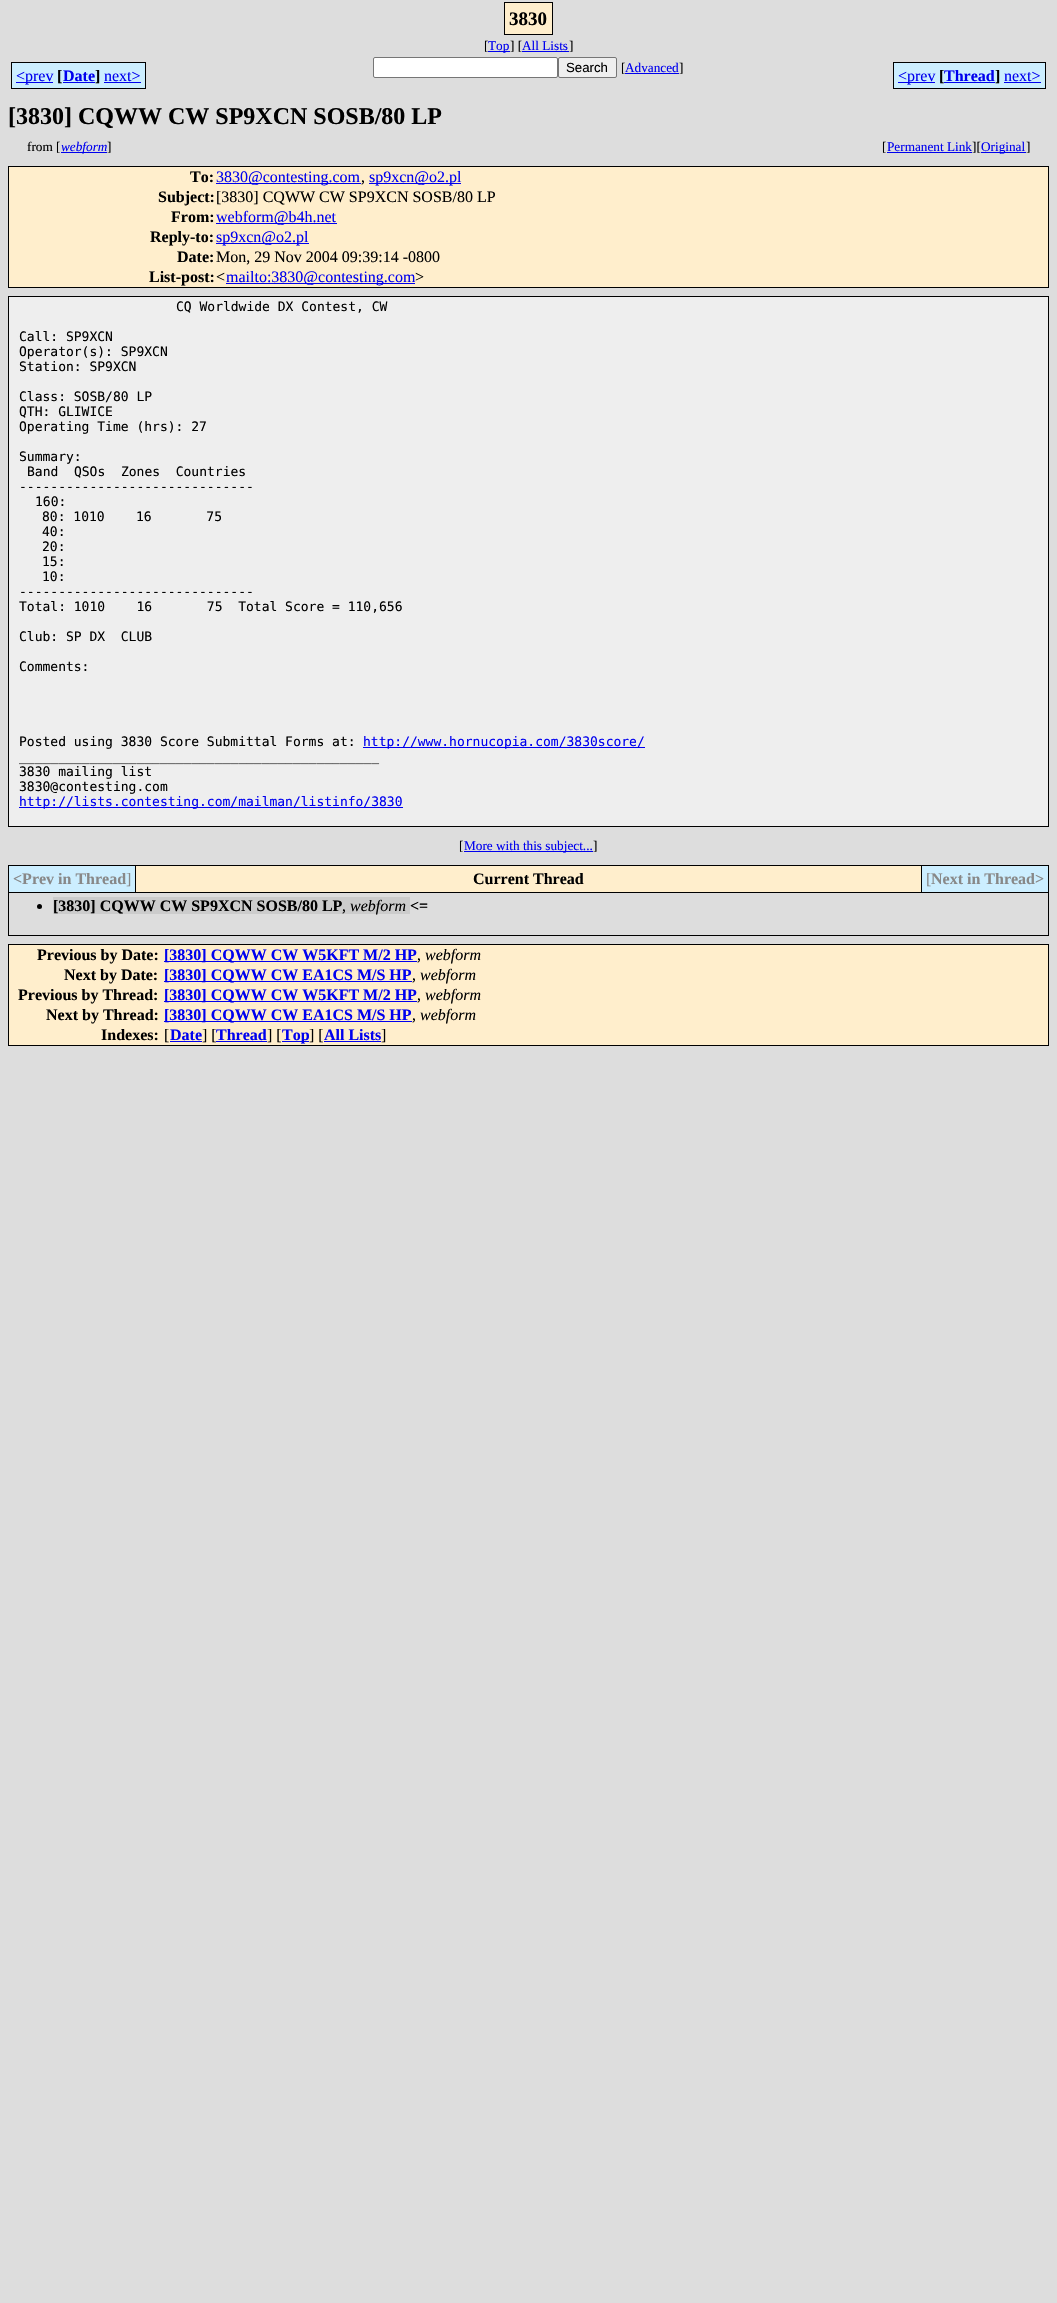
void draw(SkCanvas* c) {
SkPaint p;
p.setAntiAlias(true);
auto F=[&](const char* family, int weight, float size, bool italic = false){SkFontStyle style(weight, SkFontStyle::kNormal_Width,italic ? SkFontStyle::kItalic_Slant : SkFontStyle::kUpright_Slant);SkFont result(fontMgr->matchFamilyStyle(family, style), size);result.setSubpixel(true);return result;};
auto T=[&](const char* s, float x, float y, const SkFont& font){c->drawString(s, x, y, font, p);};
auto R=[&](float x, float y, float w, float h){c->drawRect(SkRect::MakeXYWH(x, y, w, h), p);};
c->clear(0xffdddddd);
p.setColor(0xffffeecc);
c->drawRect(SkRect::MakeXYWH(504.5,2.5,48,32),p);
p.setStroke(true);
p.setStrokeWidth(1);
p.setColor(0xff000000);
c->drawRect(SkRect::MakeXYWH(504.5,2.5,48,32),p);
auto f1 = F("Liberation Serif",700,19);
p.setStroke(false);
T("3830",509,25,f1);
auto f2 = F("Liberation Serif",400,13.25);
T("[",484,50,f2);
p.setColor(0xff0000ee);
R(488,51,22,1);
T("Top",488,50,f2);
p.setColor(0xff000000);
T("] [",510,50,f2);
p.setColor(0xff0000ee);
T("All Lists",522,50,f2);
p.setColor(0xff000000);
T("]",569,50,f2);
p.setColor(0xff0000ee);
R(522,51,47,1);
p.setColor(0xffcceeff);
R(12,63,41,25);
p.setColor(0xff0000ee);
R(16,82,37,1);
p.setColor(0xffcceeff);
R(53,62,10,27);
auto f3 = F("Liberation Serif",400,16);
p.setColor(0xff0000ee);
T("<prev",16,81,f3);
p.setColor(0xff000000);
R(11,62,42,1);
R(11,88,42,1);
R(11,62,1,27);
R(53,88,42,1);
auto f4 = F("Liberation Serif",700,16);
T("[",57,81,f4);
p.setColor(0xffcceeff);
R(63,63,32,25);
p.setColor(0xff0000ee);
R(63,82,32,1);
T("Date",63,81,f4);
p.setColor(0xff000000);
R(53,62,42,1);
p.setColor(0xffcceeff);
R(95,62,9,27);
p.setColor(0xff000000);
R(95,62,51,1);
T("]",95,81,f4);
R(95,88,9,1);
p.setColor(0xffcceeff);
R(104,63,41,25);
p.setColor(0xff0000ee);
T("next>",104,81,f3);
p.setColor(0xff000000);
R(145,62,1,27);
R(104,88,42,1);
p.setColor(0xff0000ee);
R(104,82,37,1);
p.setColor(0xffffffff);
c->drawRoundRect(SkRect::MakeXYWH(373.5,57.5,184,20),1.5,1.5,p);
p.setStroke(true);
p.setColor(0xff767676);
c->drawRoundRect(SkRect::MakeXYWH(373.5,57.5,184,20),1.5,1.5,p);
p.setStroke(false);
p.setColor(0xffefefef);
c->drawRoundRect(SkRect::MakeXYWH(558.5,57.5,58,20),1.5,1.5,p);
p.setStroke(true);
p.setColor(0xff767676);
c->drawRoundRect(SkRect::MakeXYWH(558.5,57.5,58,20),1.5,1.5,p);
auto f5 = F("Liberation Sans",400,13.25);
p.setStroke(false);
p.setColor(0xff000000);
T("Search",566,72,f5);
T("[",621,72,f2);
p.setColor(0xff0000ee);
R(625,73,54,1);
T("Advanced",625,72,f2);
p.setColor(0xff000000);
T("]",679,72,f2);
p.setColor(0xffcceeff);
R(894,63,41,25);
p.setColor(0xff0000ee);
R(898,82,37,1);
p.setColor(0xffcceeff);
R(935,62,9,27);
p.setColor(0xff0000ee);
T("<prev",898,81,f3);
p.setColor(0xff000000);
R(893,62,42,1);
R(893,88,42,1);
R(893,62,1,27);
R(935,88,60,1);
T("[",939,81,f4);
p.setColor(0xffcceeff);
R(944,63,51,25);
p.setColor(0xff0000ee);
R(944,82,51,1);
T("Thread",944,81,f4);
p.setColor(0xff000000);
R(935,62,60,1);
p.setColor(0xffcceeff);
R(995,62,9,27);
p.setColor(0xff000000);
R(995,62,51,1);
T("]",995,81,f4);
R(995,88,9,1);
p.setColor(0xffcceeff);
R(1004,63,41,25);
p.setColor(0xff0000ee);
T("next>",1004,81,f3);
p.setColor(0xff000000);
R(1045,62,1,27);
R(1004,88,42,1);
p.setColor(0xff0000ee);
R(1004,82,37,1);
auto f6 = F("Liberation Serif",700,24);
p.setColor(0xff000000);
T("[3830] CQWW CW SP9XCN SOSB/80 LP",8,124,f6);
T("from [",27,151,f2);
p.setColor(0xff0000ee);
R(61,152,46,1);
auto f7 = F("Liberation Serif",400,13.25,true);
T("webform",61,151,f7);
p.setColor(0xff000000);
T("]",107,151,f2);
T("[",882,151,f2);
p.setColor(0xff0000ee);
R(887,152,85,1);
T("Permanent Link",887,151,f2);
p.setColor(0xff000000);
T("][",972,151,f2);
p.setColor(0xff0000ee);
R(981,152,45,1);
T("Original",981,151,f2);
p.setColor(0xff000000);
T("]",1026,151,f2);
p.setColor(0xffffeecc);
c->drawRect(SkRect::MakeXYWH(8.5,166.5,1040,121),p);
p.setStroke(true);
p.setColor(0xff000000);
c->drawRect(SkRect::MakeXYWH(8.5,166.5,1040,121),p);
p.setStroke(false);
T("To:",190,182,f4);
p.setColor(0xff0000ee);
R(216,183,145,1);
T("3830@contesting.com",216,182,f3);
p.setColor(0xff000000);
T(",",361,182,f3);
p.setColor(0xff0000ee);
R(369,183,92,1);
T("sp9xcn@o2.pl",369,182,f3);
p.setColor(0xff000000);
T("Subject:",158,202,f4);
T("[3830] CQWW CW SP9XCN SOSB/80 LP",216,202,f3);
T("From:",171,222,f4);
p.setColor(0xff0000ee);
R(216,223,121,1);
T("webform@b4h.net",216,222,f3);
p.setColor(0xff000000);
T("Reply-to:",150,242,f4);
p.setColor(0xff0000ee);
R(216,243,93,1);
T("sp9xcn@o2.pl",216,242,f3);
p.setColor(0xff000000);
T("Date:",177,262,f4);
T("Mon, 29 Nov 2004 09:39:14 -0800",216,262,f3);
T("List-post:",149,282,f4);
T("<",216,282,f3);
p.setColor(0xff0000ee);
R(226,283,189,1);
T("mailto:3830@contesting.com",226,282,f3);
p.setColor(0xff000000);
T(">",415,282,f3);
p.setColor(0xffeeeeee);
c->drawRect(SkRect::MakeXYWH(8.5,296.5,1040,530),p);
p.setStroke(true);
p.setColor(0xff000000);
c->drawRect(SkRect::MakeXYWH(8.5,296.5,1040,530),p);
auto f8 = F("DejaVu Sans Mono",400,13);
p.setStroke(false);
T("CQ Worldwide DX Contest, CW",176,311,f8);
T("Call: SP9XCN",19,341,f8);
T("Operator(s): SP9XCN",19,356,f8);
T("Station: SP9XCN",19,371,f8);
T("Class: SOSB/80 LP",19,401,f8);
T("QTH: GLIWICE",19,416,f8);
T("Operating Time (hrs): 27",19,431,f8);
T("Summary:",19,461,f8);
T("Band  QSOs  Zones  Countries",27,476,f8);
T("------------------------------",19,491,f8);
T("160:",35,506,f8);
T("80: 1010    16       75",42,521,f8);
T("40:",42,536,f8);
T("20:",42,551,f8);
T("15:",42,566,f8);
T("10:",42,581,f8);
T("------------------------------",19,596,f8);
T("Total: 1010    16       75  Total Score = 110,656",19,611,f8);
T("Club: SP DX  CLUB",19,641,f8);
T("Comments:",19,671,f8);
T("Posted using 3830 Score Submittal Forms at:",19,746,f8);
p.setColor(0xff0000ee);
R(363,747,282,1);
T("http://www.hornucopia.com/3830score/",363,746,f8);
p.setColor(0xff000000);
T("______________________________________________",19,761,f8);
T("3830 mailing list",19,776,f8);
T("3830@contesting.com",19,791,f8);
p.setColor(0xff0000ee);
R(19,807,384,1);
T("http://lists.contesting.com/mailman/listinfo/3830",19,806,f8);
p.setColor(0xff000000);
T("[",459,850,f2);
p.setColor(0xff0000ee);
R(464,851,129,1);
T("More with this subject...",464,850,f2);
p.setColor(0xff000000);
T("]",593,850,f2);
R(8,865,1041,71);
p.setColor(0xffcceeff);
R(9,866,126,26);
p.setColor(0xff888888);
T("<Prev in Thread",13,884,f4);
T("]",126,884,f3);
p.setColor(0xffffeecc);
R(136,866,785,26);
p.setColor(0xff000000);
T("Current Thread",473,884,f4);
p.setColor(0xffcceeff);
R(922,866,126,26);
p.setColor(0xff888888);
T("[",926,884,f3);
T("Next in Thread>",931,884,f4);
p.setColor(0xffdddddd);
R(9,893,1039,42);
p.setColor(0xff000000);
c->drawCircle(39.5,906.5,2.5,p);
p.setColor(0xffcccccc);
R(53,897,357,17);
p.setColor(0xff000000);
T("[3830] CQWW CW SP9XCN SOSB/80 LP",53,911,f4);
auto f9 = F("Liberation Serif",400,16,true);
T("webform",350,911,f9);
T("<=",410,911,f4);
T(",",342,911,f3);
p.setColor(0xffffeecc);
c->drawRect(SkRect::MakeXYWH(8.5,944.5,1040,101),p);
p.setStroke(true);
p.setColor(0xff000000);
c->drawRect(SkRect::MakeXYWH(8.5,944.5,1040,101),p);
p.setStroke(false);
T("Previous by Date:",37,960,f4);
p.setColor(0xff0000ee);
R(164,961,253,1);
T("[3830] CQWW CW W5KFT M/2 HP",164,960,f4);
p.setColor(0xff000000);
T(",",417,960,f3);
T("webform",425,960,f9);
T("Next by Date:",64,980,f4);
p.setColor(0xff0000ee);
R(164,981,248,1);
T("[3830] CQWW CW EA1CS M/S HP",164,980,f4);
p.setColor(0xff000000);
T(",",412,980,f3);
T("webform",420,980,f9);
T("Previous by Thread:",18,1000,f4);
p.setColor(0xff0000ee);
R(164,1001,253,1);
T("[3830] CQWW CW W5KFT M/2 HP",164,1000,f4);
p.setColor(0xff000000);
T(",",417,1000,f3);
T("webform",425,1000,f9);
T("Next by Thread:",46,1020,f4);
p.setColor(0xff0000ee);
R(164,1021,248,1);
T("[3830] CQWW CW EA1CS M/S HP",164,1020,f4);
p.setColor(0xff000000);
T(",",412,1020,f3);
T("webform",420,1020,f9);
T("Indexes:",101,1040,f4);
T("[",164,1040,f3);
p.setColor(0xff0000ee);
T("Date",170,1040,f4);
R(170,1041,32,1);
p.setColor(0xff000000);
T("] [",202,1040,f3);
p.setColor(0xff0000ee);
T("Thread",216,1040,f4);
R(216,1041,51,1);
p.setColor(0xff000000);
T("] [",267,1040,f3);
p.setColor(0xff0000ee);
R(282,1041,27,1);
T("Top",282,1040,f4);
p.setColor(0xff000000);
T("] [",309,1040,f3);
p.setColor(0xff0000ee);
T("All Lists",324,1040,f4);
R(324,1041,57,1);
p.setColor(0xff000000);
T("]",381,1040,f3);
}
